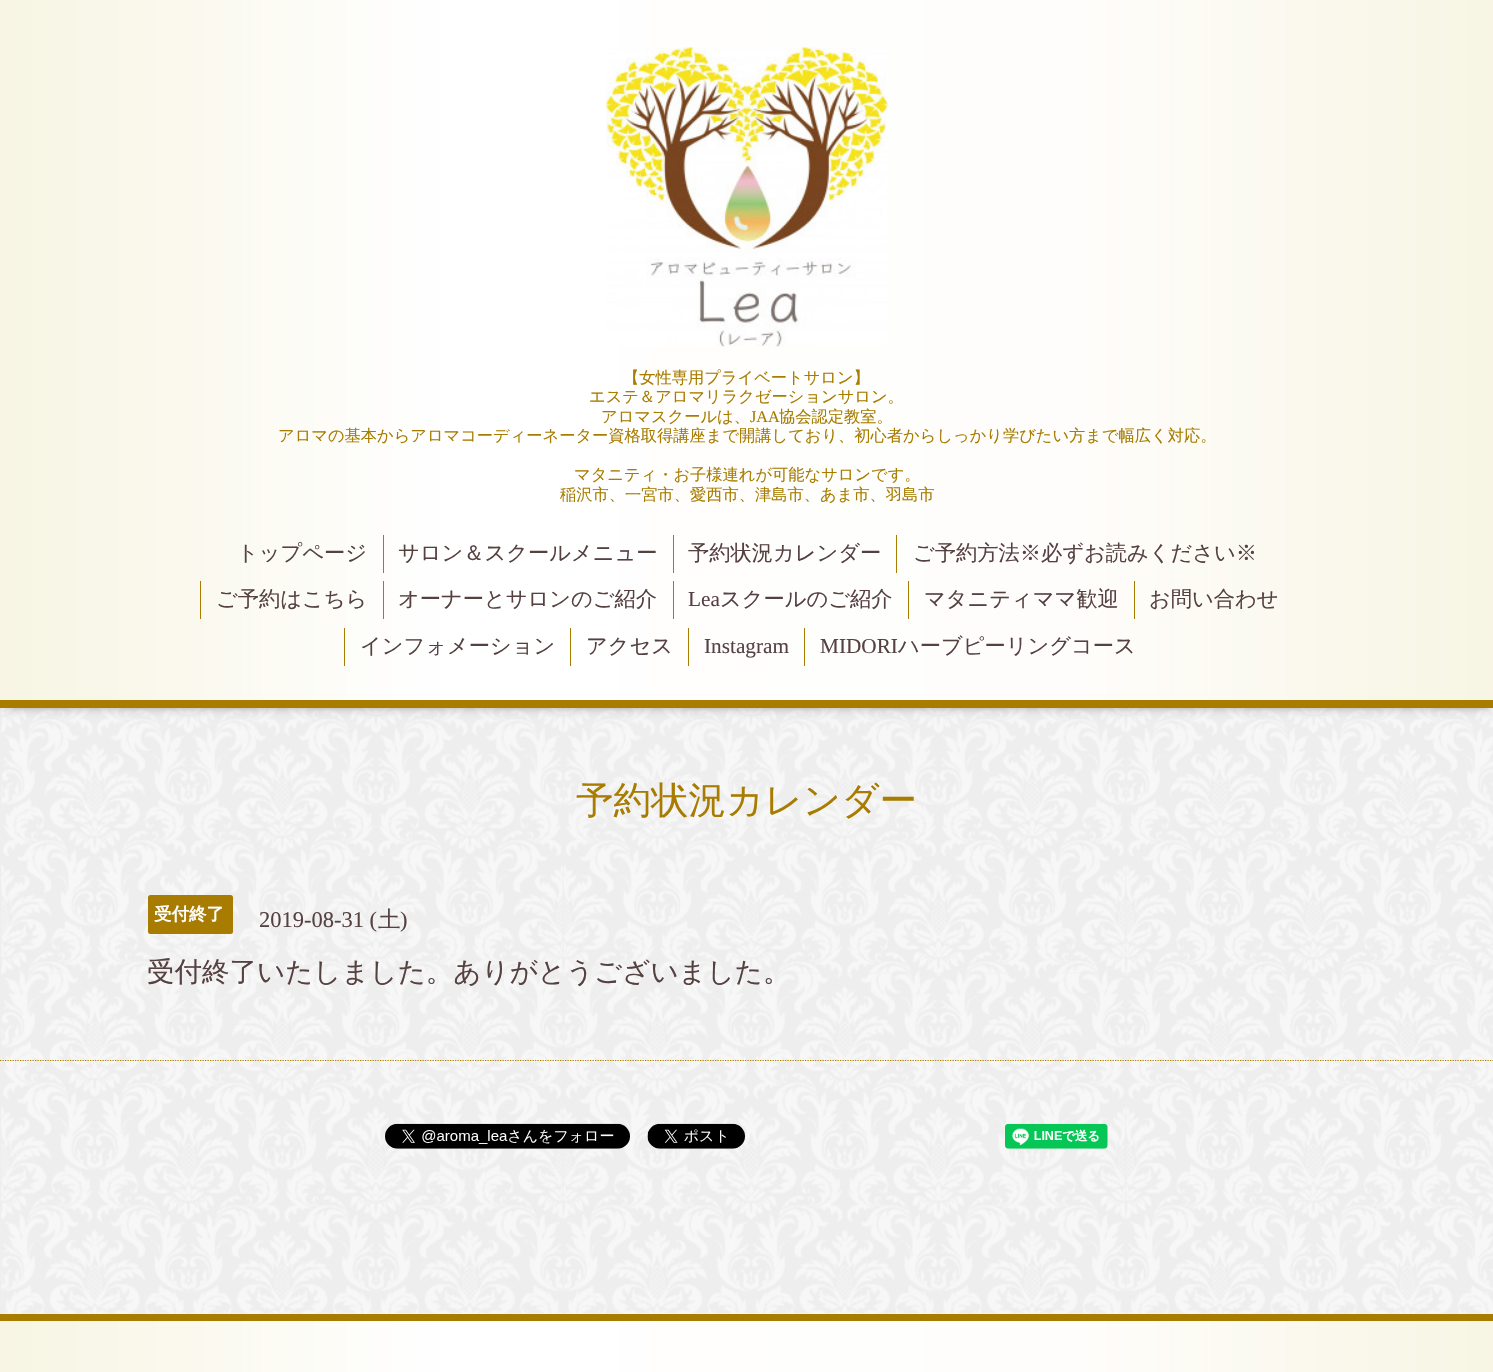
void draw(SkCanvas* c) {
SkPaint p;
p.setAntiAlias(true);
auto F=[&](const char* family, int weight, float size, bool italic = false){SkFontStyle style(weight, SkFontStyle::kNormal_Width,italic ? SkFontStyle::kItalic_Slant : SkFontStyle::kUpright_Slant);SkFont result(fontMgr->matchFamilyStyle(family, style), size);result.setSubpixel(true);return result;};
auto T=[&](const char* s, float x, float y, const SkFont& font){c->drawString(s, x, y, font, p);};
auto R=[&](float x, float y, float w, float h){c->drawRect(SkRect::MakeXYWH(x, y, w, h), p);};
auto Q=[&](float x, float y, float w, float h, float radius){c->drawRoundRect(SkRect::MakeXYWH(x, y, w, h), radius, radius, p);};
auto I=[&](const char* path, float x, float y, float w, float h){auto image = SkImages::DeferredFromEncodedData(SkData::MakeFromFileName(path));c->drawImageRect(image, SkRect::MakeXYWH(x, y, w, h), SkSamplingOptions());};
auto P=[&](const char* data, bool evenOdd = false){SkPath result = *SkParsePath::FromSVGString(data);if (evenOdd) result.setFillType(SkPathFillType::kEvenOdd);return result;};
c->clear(0xffeeeeee);
I("1.png",1,708,1492,606);
p.setColor(0x99000000);
p.setMaskFilter(SkMaskFilter::MakeBlur(kNormal_SkBlurStyle, 6));
c->drawRect(SkRect::MakeXYWH(5,6,1484,698),p);
p.setMaskFilter(nullptr);
I("2.png",0,0,1493,700);
p.setColor(0xffa87c00);
R(0,700,1493,8);
I("3.png",606,47,282,300);
auto f1 = F("WenQuanYi Zen Hei",500,16.25);
T("【女性専用プライベートサロン】",623,383,f1);
T("エステ＆アロマリラクゼーションサロン。",589,402,f1);
T("アロマスクールは、",601,422,f1);
auto f2 = F("Liberation Serif",400,16.25);
T("JAA",750,422,f2);
T("協会認定教室。",779,422,f1);
T("アロマの基本からアロマコーディーネーター資格取得講座まで開講しており、初心者からしっかり学びたい方まで幅広く対応。",278,441,f1);
T("マタニティ・お子様連れが可能なサロンです。",574,480,f1);
T("稲沢市、一宮市、愛西市、津島市、あま市、羽島市",560,500,f1);
auto f3 = F("WenQuanYi Zen Hei",500,21.25);
p.setColor(0xff564141);
T("トップページ",237,560,f3);
p.setColor(0xffa87c00);
R(383,535,1,38);
p.setColor(0xff564141);
T("サロン＆スクールメニュー",398,560,f3);
p.setColor(0xffa87c00);
R(673,535,1,38);
p.setColor(0xff564141);
T("予約状況カレンダー",688,560,f3);
p.setColor(0xffa87c00);
R(896,535,1,38);
p.setColor(0xff564141);
T("ご予約方法※必ずお読みください※",913,560,f3);
p.setColor(0xffa87c00);
R(200,581,1,38);
p.setColor(0xff564141);
T("ご予約はこちら",216,606,f3);
p.setColor(0xffa87c00);
R(383,581,1,38);
p.setColor(0xff564141);
T("オーナーとサロンのご紹介",398,606,f3);
p.setColor(0xffa87c00);
R(673,581,1,38);
auto f4 = F("Liberation Serif",400,21.25);
p.setColor(0xff564141);
T("Lea",688,606,f4);
T("スクールのご紹介",720,606,f3);
p.setColor(0xffa87c00);
R(908,581,1,38);
p.setColor(0xff564141);
T("マタニティママ歓迎",924,606,f3);
p.setColor(0xffa87c00);
R(1134,581,1,38);
p.setColor(0xff564141);
T("お問い合わせ",1149,606,f3);
p.setColor(0xffa87c00);
R(344,628,1,38);
p.setColor(0xff564141);
T("インフォメーション",360,653,f3);
p.setColor(0xffa87c00);
R(570,628,1,38);
p.setColor(0xff564141);
T("アクセス",586,653,f3);
p.setColor(0xffa87c00);
R(688,628,1,38);
p.setColor(0xff564141);
T("Instagram",704,653,f4);
p.setColor(0xffa87c00);
R(804,628,1,38);
p.setColor(0xff564141);
T("MIDORI",820,653,f4);
T("ハーブピーリングコース",898,653,f3);
auto f5 = F("WenQuanYi Zen Hei",500,37.5);
p.setColor(0xffa87c00);
T("予約状況カレンダー",576,813,f5);
Q(148,895,85,39,2.5);
auto f6 = F("WenQuanYi Zen Hei",700,17.5);
p.setColor(0xffffffff);
T("受付終了",154,920,f6);
auto f7 = F("Liberation Serif",400,22.5);
p.setColor(0xff564141);
T("2019-08-31 (",259,927,f7);
auto f8 = F("WenQuanYi Zen Hei",500,22.5);
T("土",378,927,f8);
T(")",400,927,f7);
auto f9 = F("WenQuanYi Zen Hei",500,27.5);
T("受付終了いたしました。ありがとうございました。",147,981,f9);
p.setStroke(true);
p.setStrokeWidth(1.2);
p.setColor(0xffa87c00);
p.setPathEffect(SkDashPathEffect::Make({{1.25f,1.25f}}, 0));
c->drawPath(P("M0 1060.5h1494"),p);
p.setPathEffect(nullptr);
I("4.png",385,1123,245,26);
I("5.png",647,1123,98,26);
I("6.png",1005,1123,103,26);
I("7.png",0,1313,1493,59);
p.setStroke(false);
R(0,1314,1493,7);
}
